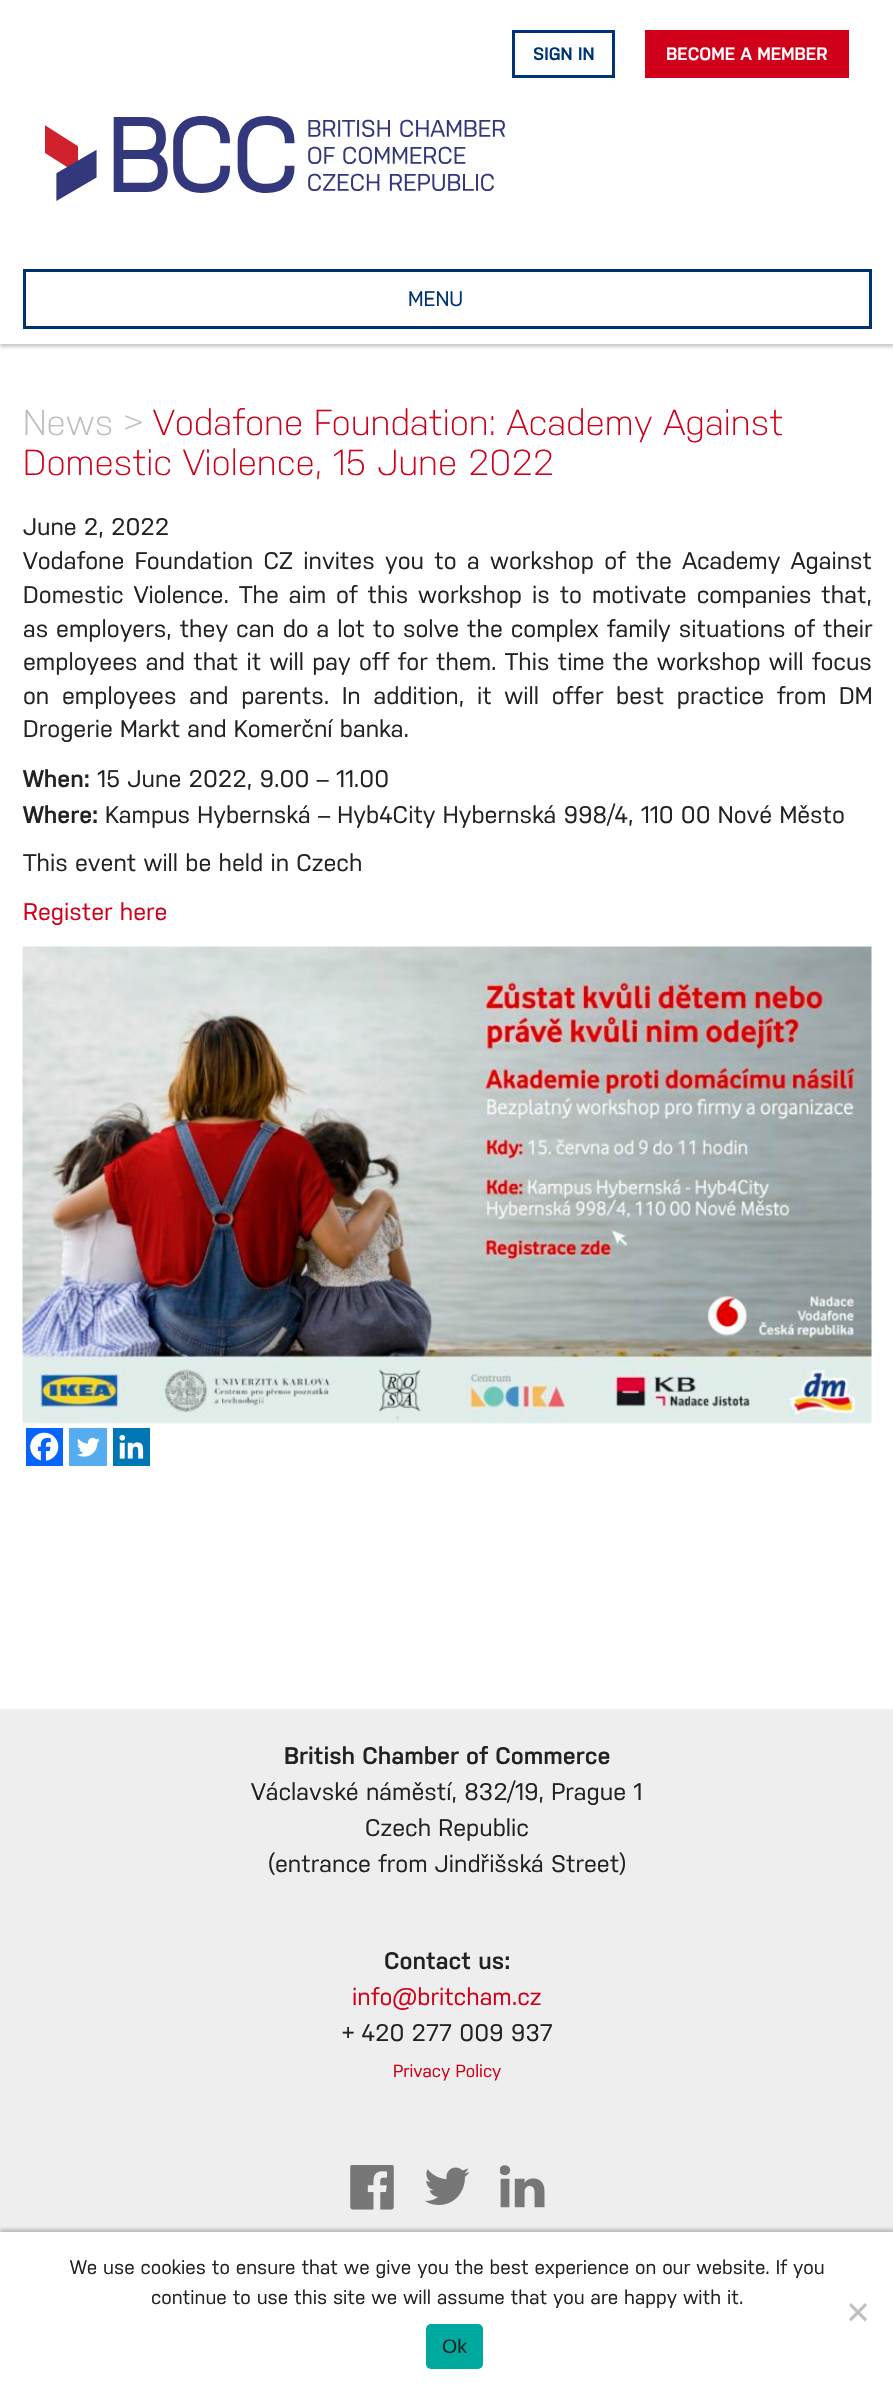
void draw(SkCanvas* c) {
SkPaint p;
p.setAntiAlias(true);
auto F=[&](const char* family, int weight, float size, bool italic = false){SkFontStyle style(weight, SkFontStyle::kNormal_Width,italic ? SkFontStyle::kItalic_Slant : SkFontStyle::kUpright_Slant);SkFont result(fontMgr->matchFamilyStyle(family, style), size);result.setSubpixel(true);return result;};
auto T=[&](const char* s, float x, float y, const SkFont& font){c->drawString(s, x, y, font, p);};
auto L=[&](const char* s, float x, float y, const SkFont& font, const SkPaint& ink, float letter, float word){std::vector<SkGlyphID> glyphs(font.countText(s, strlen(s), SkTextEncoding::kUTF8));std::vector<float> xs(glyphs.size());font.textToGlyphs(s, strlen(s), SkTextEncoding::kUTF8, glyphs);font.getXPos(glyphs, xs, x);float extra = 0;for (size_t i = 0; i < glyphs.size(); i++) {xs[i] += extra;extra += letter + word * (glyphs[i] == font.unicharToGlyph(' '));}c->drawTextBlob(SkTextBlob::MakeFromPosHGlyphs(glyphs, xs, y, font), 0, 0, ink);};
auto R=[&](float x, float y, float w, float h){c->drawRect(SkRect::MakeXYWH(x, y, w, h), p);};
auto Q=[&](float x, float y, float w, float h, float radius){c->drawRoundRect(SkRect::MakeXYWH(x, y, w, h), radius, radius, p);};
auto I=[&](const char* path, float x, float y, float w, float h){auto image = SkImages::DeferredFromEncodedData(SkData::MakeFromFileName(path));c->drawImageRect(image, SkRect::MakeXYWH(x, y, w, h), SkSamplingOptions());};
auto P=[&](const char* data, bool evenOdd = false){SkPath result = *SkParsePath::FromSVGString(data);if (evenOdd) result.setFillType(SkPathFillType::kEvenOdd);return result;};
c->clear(0xffffffff);
p.setStroke(true);
p.setStrokeWidth(3);
p.setColor(0xff003375);
c->drawRect(SkRect::MakeXYWH(513.5,31.5,100,45),p);
auto f1 = F("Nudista",600,18);
p.setStroke(false);
T("SIGN IN",533,60,f1);
p.setColor(0xffd0001b);
R(645,30,204,48);
p.setColor(0xffffffff);
T("BECOME A MEMBER",666,60,f1);
I("1.png",45,116,460,85);
c->save();
c->clipPath(P("M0 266h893v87h-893zm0 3h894v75h-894z",true),true);
p.setColor(0x33000000);
p.setMaskFilter(SkMaskFilter::MakeBlur(kNormal_SkBlurStyle, 1.5));
c->drawRect(SkRect::MakeXYWH(0,272,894,75),p);
p.setMaskFilter(nullptr);
c->restore();
p.setStroke(true);
p.setColor(0xff003375);
c->drawRect(SkRect::MakeXYWH(24.5,270.5,846,57),p);
auto f2 = F("Nudista",400,21);
p.setStroke(false);
T("MENU",408,306,f2);
auto f3 = F("Nudista",300,36);
p.setColor(0xffbbbbbb);
T("News >",23,435,f3);
p.setColor(0xffd0001b);
T("Vodafone Foundation: Academy Against",153,435,f3);
T("Domestic Violence, 15 June 2022",23,475,f3);
auto f4 = F("Nudista",400,24);
p.setColor(0xff222222);
T("June 2, 2022",23,535,f4);
L("Vodafone Foundation CZ invites you to a workshop of the Academy Against",23,569,f4,p,0,3.1);
L("Domestic Violence. The aim of this workshop is to motivate companies that,",23,603,f4,p,0,2.75);
L("as employers, they can do a lot to solve the complex family situations of their",23,637,f4,p,0,.7);
L("employees and that it will pay off for them. This time the workshop will focus",23,670,f4,p,0,1);
L("on employees and parents. In addition, it will offer best practice from DM",23,704,f4,p,0,5.5);
T("Drogerie Markt and Komerční banka.",23,737,f4);
auto f5 = F("Nudista",600,24);
T("When:",23,787,f5);
T("15 June 2022, 9.00 – 11.00",97,787,f4);
T("Where:",23,823,f5);
T("Kampus Hybernská – Hyb4City Hybernská 998/4, 110 00 Nové Město",105,823,f4);
T("This event will be held in Czech",23,871,f4);
p.setColor(0xffd0001b);
T("Register here",23,920,f4);
I("2.png",22,946,850,478);
p.setColor(0xff0765fe);
R(26,1428,37,38);
I("3.png",30,1432,29,29);
p.setColor(0xff55acee);
R(69,1428,38,38);
I("4.png",77,1437,23,20);
p.setColor(0xff0077b5);
R(113,1428,37,38);
I("5.png",119,1434,25,25);
p.setColor(0xffeeeeee);
R(0,1709,893,523);
p.setColor(0xff222222);
T("British Chamber of Commerce",284,1764,f5);
T("Václavské náměstí, 832/19, Prague 1",251,1800,f4);
T("Czech Republic",365,1836,f4);
T("(entrance from Jindřišská Street)",268,1872,f4);
T("Contact us:",384,1969,f5);
p.setColor(0xffd0001b);
T("info@britcham.cz",352,2005,f4);
p.setColor(0xff222222);
T("+ 420 277 009 937",342,2041,f4);
auto f6 = F("Nudista",400,17.5);
p.setColor(0xffd0001b);
T("Privacy Policy",393,2077,f6);
I("6.png",350,2165,44,45);
I("7.png",425,2167,45,38);
I("8.png",500,2165,45,43);
p.setColor(0x33000000);
p.setMaskFilter(SkMaskFilter::MakeBlur(kNormal_SkBlurStyle, 1.5));
c->drawRect(SkRect::MakeXYWH(0,2229,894,159),p);
p.setMaskFilter(nullptr);
p.setColor(0xffffffff);
R(0,2232,893,158);
auto f7 = F("Nudista",400,19.5);
p.setColor(0xff222222);
T("We use cookies to ensure that we give you the best experience on our website. If you",70,2274,f7);
T("continue to use this site we will assume that you are happy with it.",151,2304,f7);
p.setColor(0xffc0c0c0);
c->drawPath(P("M865 2303l2 2.5l-16 16l-2-2.5z"),p);
c->drawPath(P("M849 2305.5l2-2.5l16 16l-2 2.5z"),p);
p.setColor(0xff00a99d);
Q(426,2324,57,45,5);
auto f8 = F("Liberation Sans",400,19.5);
p.setColor(0xff222222);
T("Ok",442,2353,f8);
}
